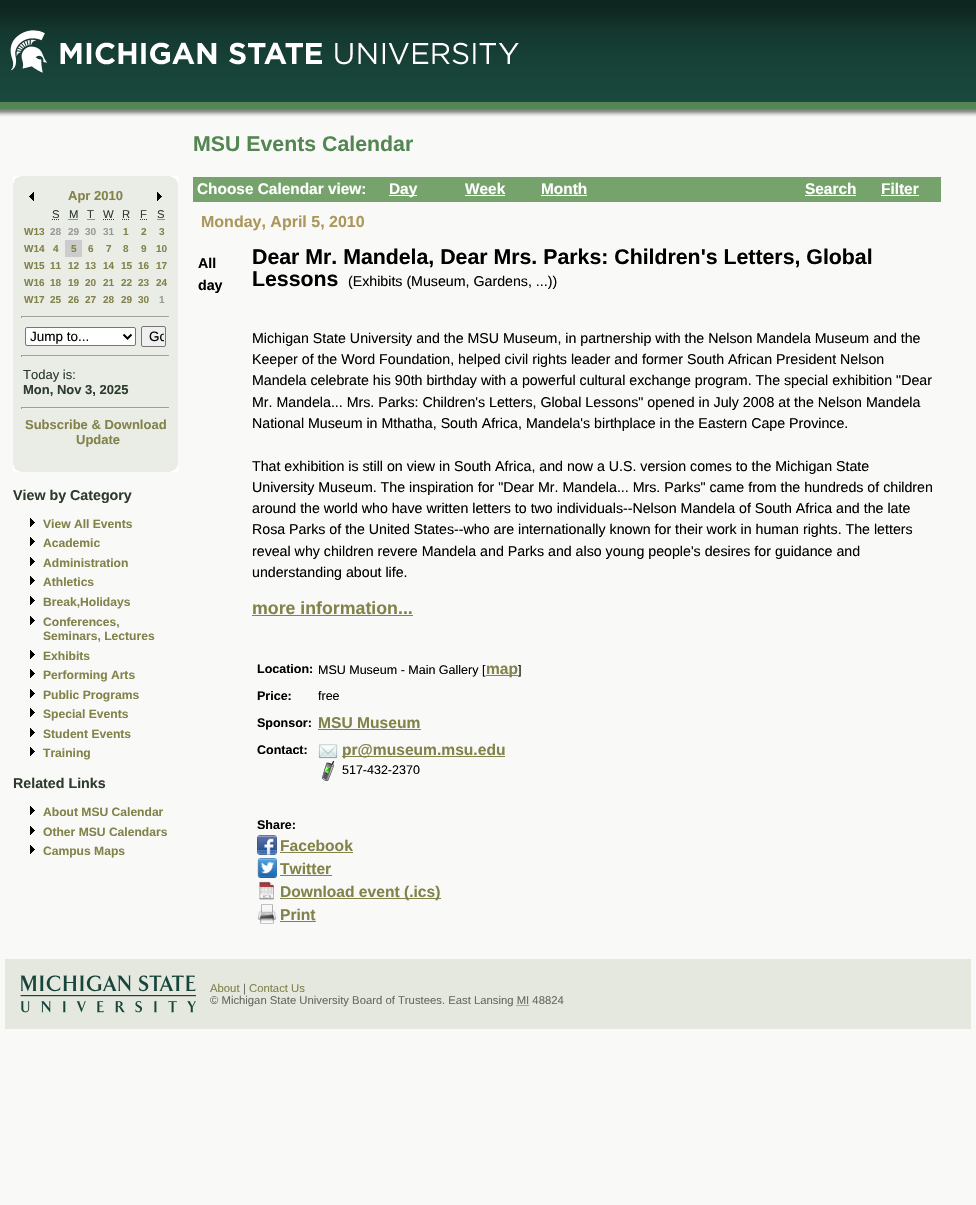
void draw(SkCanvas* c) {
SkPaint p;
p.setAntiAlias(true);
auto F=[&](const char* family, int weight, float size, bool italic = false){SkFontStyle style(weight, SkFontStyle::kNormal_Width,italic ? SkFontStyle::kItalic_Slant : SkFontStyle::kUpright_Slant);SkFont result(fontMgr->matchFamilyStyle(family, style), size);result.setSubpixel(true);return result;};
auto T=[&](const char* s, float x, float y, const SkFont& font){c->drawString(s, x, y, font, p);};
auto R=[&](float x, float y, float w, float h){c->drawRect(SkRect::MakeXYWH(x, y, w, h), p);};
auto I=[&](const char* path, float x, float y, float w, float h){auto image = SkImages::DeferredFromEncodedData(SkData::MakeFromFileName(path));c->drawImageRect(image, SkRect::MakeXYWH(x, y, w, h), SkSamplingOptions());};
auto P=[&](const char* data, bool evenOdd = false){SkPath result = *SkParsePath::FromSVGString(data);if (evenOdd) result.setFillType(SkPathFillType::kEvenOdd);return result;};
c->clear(0xfff9f9f7);
I("1.png",0,0,976,117);
I("2.png",10,30,509,43);
p.setColor(0xffeaede6);
R(13,176,8,296);
I("3.png",13,176,7,7);
R(21,176,149,296);
R(170,176,8,296);
I("4.png",171,176,7,7);
I("5.png",29,192,5,9);
auto f1 = F("Liberation Sans",700,13);
p.setColor(0xff82824b);
T("Apr 2010",68,200,f1);
I("6.png",157,192,5,9);
auto f2 = F("Liberation Sans",400,11.3);
p.setColor(0xff2d3c2d);
T("S",52,218,f2);
p.setStroke(true);
p.setStrokeWidth(1);
p.setPathEffect(SkDashPathEffect::Make({{1,1}}, 0));
c->drawPath(P("M52 219.5h7.5"),p);
p.setPathEffect(nullptr);
p.setStroke(false);
T("M",69,218,f2);
p.setStroke(true);
p.setPathEffect(SkDashPathEffect::Make({{1,1}}, 0));
c->drawPath(P("M68.5 219.5h9.5"),p);
p.setPathEffect(nullptr);
p.setStroke(false);
T("T",87,218,f2);
p.setStroke(true);
c->drawPath(P("M87.5 219.5h1m1 0h1m1 0h1m1 0h1"),p);
p.setStroke(false);
T("W",103,218,f2);
p.setStroke(true);
p.setPathEffect(SkDashPathEffect::Make({{1,1}}, 0));
c->drawPath(P("M103 219.5h11"),p);
p.setPathEffect(nullptr);
p.setStroke(false);
T("R",122,218,f2);
p.setStroke(true);
p.setPathEffect(SkDashPathEffect::Make({{1,1}}, 0));
c->drawPath(P("M122 219.5h8"),p);
p.setPathEffect(nullptr);
p.setStroke(false);
T("F",140,218,f2);
p.setStroke(true);
c->drawPath(P("M140 219.5h1m1 0h1m1 0h1m1 0h1"),p);
p.setStroke(false);
T("S",157,218,f2);
p.setStroke(true);
p.setPathEffect(SkDashPathEffect::Make({{1,1}}, 0));
c->drawPath(P("M157.5 219.5h7.5"),p);
p.setPathEffect(nullptr);
auto f3 = F("Liberation Sans",700,10);
p.setStroke(false);
p.setColor(0xff82824b);
T("W13",24,235,f3);
p.setColor(0xff999999);
T("28",50,235,f3);
T("29",68,235,f3);
T("30",85,235,f3);
T("31",103,235,f3);
p.setColor(0xff82824b);
T("1",123,235,f3);
T("2",141,235,f3);
T("3",159,235,f3);
T("W14",24,252,f3);
T("4",53,252,f3);
p.setColor(0xffcccccc);
R(65,240,17,17);
p.setColor(0xff82824b);
T("5",71,252,f3);
T("6",88,252,f3);
T("7",106,252,f3);
T("8",123,252,f3);
T("9",141,252,f3);
T("10",156,252,f3);
T("W15",24,269,f3);
T("11",50,269,f3);
T("12",68,269,f3);
T("13",85,269,f3);
T("14",103,269,f3);
T("15",121,269,f3);
T("16",138,269,f3);
T("17",156,269,f3);
T("W16",24,286,f3);
T("18",50,286,f3);
T("19",68,286,f3);
T("20",85,286,f3);
T("21",103,286,f3);
T("22",121,286,f3);
T("23",138,286,f3);
T("24",156,286,f3);
T("W17",24,303,f3);
T("25",50,303,f3);
T("26",68,303,f3);
T("27",85,303,f3);
T("28",103,303,f3);
T("29",121,303,f3);
T("30",138,303,f3);
p.setColor(0xff999999);
T("1",159,303,f3);
p.setColor(0xff9f9f9f);
R(21,316,149,1);
p.setColor(0xffeeeeee);
R(169,316,1,2);
R(21,317,149,1);
p.setColor(0xff9f9f9f);
R(21,316,1,2);
p.setColor(0xffffffff);
c->drawRoundRect(SkRect::MakeXYWH(25.5,327.5,110,18),1.5,1.5,p);
p.setStroke(true);
p.setColor(0xff767676);
c->drawRoundRect(SkRect::MakeXYWH(25.5,327.5,110,18),1.5,1.5,p);
p.setStrokeWidth(2);
p.setColor(0xff000000);
c->drawPath(P("M123.5 334.5l4 4l4-4"),p);
auto f4 = F("Liberation Sans",400,13.5);
p.setStroke(false);
T("Jump to...",30,341,f4);
p.setColor(0xffefefef);
c->drawRoundRect(SkRect::MakeXYWH(141.5,326.5,24,20),1.5,1.5,p);
p.setStroke(true);
p.setStrokeWidth(1);
p.setColor(0xff767676);
c->drawRoundRect(SkRect::MakeXYWH(141.5,326.5,24,20),1.5,1.5,p);
c->save();
c->clipRect(SkRect::MakeXYWH(143,328,21,17));
p.setStroke(false);
p.setColor(0xff000000);
T("Go",149,341,f4);
c->restore();
p.setColor(0xff9f9f9f);
R(21,355,149,1);
p.setColor(0xffeeeeee);
R(169,355,1,2);
R(21,356,149,1);
p.setColor(0xff9f9f9f);
R(21,355,1,2);
auto f5 = F("Liberation Sans",400,13);
p.setColor(0xff2d3c2d);
T("Today is:",23,379,f5);
T("Mon, Nov 3, 2025",23,394,f1);
p.setColor(0xff9f9f9f);
R(21,407,149,1);
p.setColor(0xffeeeeee);
R(169,407,1,2);
R(21,408,149,1);
p.setColor(0xff9f9f9f);
R(21,407,1,2);
p.setColor(0xff82824b);
T("Subscribe & Download",25,429,f1);
T("Update",76,444,f1);
I("7.png",13,465,7,7);
I("8.png",171,465,7,7);
auto f6 = F("Liberation Sans",700,14.25);
p.setColor(0xff2d3c2d);
T("View by Category",13,500,f6);
I("9.png",30,518,5,9);
auto f7 = F("Liberation Sans",700,12.1);
p.setColor(0xff82824b);
T("View All Events",43,528,f7);
I("9.png",30,537,5,9);
T("Academic",43,547,f7);
I("9.png",30,557,5,9);
T("Administration",43,567,f7);
I("9.png",30,576,5,9);
T("Athletics",43,586,f7);
I("9.png",30,596,5,9);
T("Break,Holidays",43,606,f7);
I("9.png",30,616,5,9);
T("Conferences,",43,626,f7);
T("Seminars, Lectures",43,640,f7);
I("9.png",30,650,5,9);
T("Exhibits",43,660,f7);
I("9.png",30,669,5,9);
T("Performing Arts",43,679,f7);
I("9.png",30,689,5,9);
T("Public Programs",43,699,f7);
I("9.png",30,708,5,9);
T("Special Events",43,718,f7);
I("9.png",30,728,5,9);
T("Student Events",43,738,f7);
I("9.png",30,747,5,9);
T("Training",43,757,f7);
p.setColor(0xff2d3c2d);
T("Related Links",13,788,f6);
I("9.png",30,806,5,9);
p.setColor(0xff82824b);
T("About MSU Calendar",43,816,f7);
I("9.png",30,826,5,9);
T("Other MSU Calendars",43,836,f7);
I("9.png",30,845,5,9);
T("Campus Maps",43,855,f7);
auto f8 = F("Liberation Sans",700,21.3);
p.setColor(0xff548654);
T("MSU Events Calendar",193,151,f8);
p.setColor(0xff75a36b);
R(193,177,748,25);
auto f9 = F("Liberation Sans",700,15.4);
p.setColor(0xffffffff);
T("Choose Calendar view:",197,194,f9);
R(389,195,28,1);
T("Day",389,194,f9);
T("Week",465,194,f9);
R(465,195,40,1);
T("Month",541,194,f9);
R(541,195,46,1);
T("Search",805,194,f9);
R(805,195,51,1);
T("Filter",881,194,f9);
R(881,195,38,1);
auto f10 = F("Liberation Sans",700,16);
p.setColor(0xffaa975b);
T("Monday, April 5, 2010",201,227,f10);
auto f11 = F("Liberation Sans",700,14.2);
p.setColor(0xff000000);
T("All",198,268,f11);
T("day",198,290,f11);
T("Dear Mr. Mandela, Dear Mrs. Parks: Children's Letters, Global",252,264,f8);
T("Lessons",252,286,f8);
auto f12 = F("Liberation Sans",400,14.2);
T("(Exhibits (Museum, Gardens, ...))",348,286,f12);
T("Michigan State University and the MSU Museum, in partnership with the Nelson Mandela Museum and the",252,343,f12);
T("Keeper of the Word Foundation, helped civil rights leader and former South African President Nelson",252,364,f12);
T("Mandela celebrate his 90th birthday with a powerful cultural exchange program. The special exhibition \"Dear",252,385,f12);
T("Mr. Mandela... Mrs. Parks: Children's Letters, Global Lessons\" opened in July 2008 at the Nelson Mandela",252,407,f12);
T("National Museum in Mthatha, South Africa, Mandela's birthplace in the Eastern Cape Province.",252,428,f12);
T("That exhibition is still on view in South Africa, and now a U.S. version comes to the Michigan State",252,471,f12);
T("University Museum. The inspiration for \"Dear Mr. Mandela... Mrs. Parks\" came from the hundreds of children",252,492,f12);
T("around the world who have written letters to two individuals--Nelson Mandela of South Africa and the late",252,513,f12);
T("Rosa Parks of the United States--who are internationally known for their work in human rights. The letters",252,534,f12);
T("reveal why children revere Mandela and Parks and also young people's desires for guidance and",252,556,f12);
T("understanding about life.",252,577,f12);
auto f13 = F("Liberation Sans",700,17.75);
p.setColor(0xff82824b);
T("more information...",252,614,f13);
R(252,615,161,1);
auto f14 = F("Liberation Sans",700,12.5);
p.setColor(0xff000000);
T("Location:",257,673,f14);
auto f15 = F("Liberation Sans",400,12.5);
T("MSU Museum - Main Gallery [",318,674,f15);
p.setColor(0xff82824b);
R(486,675,32,1);
auto f16 = F("Liberation Sans",700,15.6);
T("map",486,674,f16);
p.setColor(0xff000000);
T("]",518,674,f15);
T("Price:",257,700,f14);
T("free",318,700,f15);
T("Sponsor:",257,727,f14);
p.setColor(0xff82824b);
T("MSU Museum",318,728,f16);
R(318,729,103,1);
p.setColor(0xff000000);
T("Contact:",257,754,f14);
I("10.png",318,744,20,15);
p.setColor(0xff82824b);
R(342,756,163,1);
T("pr@museum.msu.edu",342,755,f16);
I("11.png",322,761,12,20);
p.setColor(0xff000000);
T("517-432-2370",342,774,f15);
T("Share:",257,829,f14);
I("12.png",257,835,20,20);
p.setColor(0xff82824b);
T("Facebook",280,851,f16);
R(280,852,73,1);
I("13.png",257,858,20,20);
T("Twitter",280,874,f16);
R(280,875,52,1);
I("14.png",257,881,17,19);
R(280,898,161,1);
T("Download event (.ics)",280,897,f16);
I("15.png",257,904,20,20);
T("Print",280,920,f16);
R(280,921,36,1);
p.setColor(0xffe4e8de);
R(5,959,966,70);
I("16.png",20,975,176,38);
p.setColor(0xff82824b);
T("About",210,992,f2);
p.setColor(0xff686963);
T("|",243,992,f2);
p.setColor(0xff82824b);
T("Contact Us",249,992,f2);
p.setColor(0xff686963);
T("© Michigan State University Board of Trustees. East Lansing MI 48824",210,1004,f2);
p.setStroke(true);
p.setPathEffect(SkDashPathEffect::Make({{1,1}}, 0));
c->drawPath(P("M516.5 1005.5h12.5"),p);
p.setPathEffect(nullptr);
}
